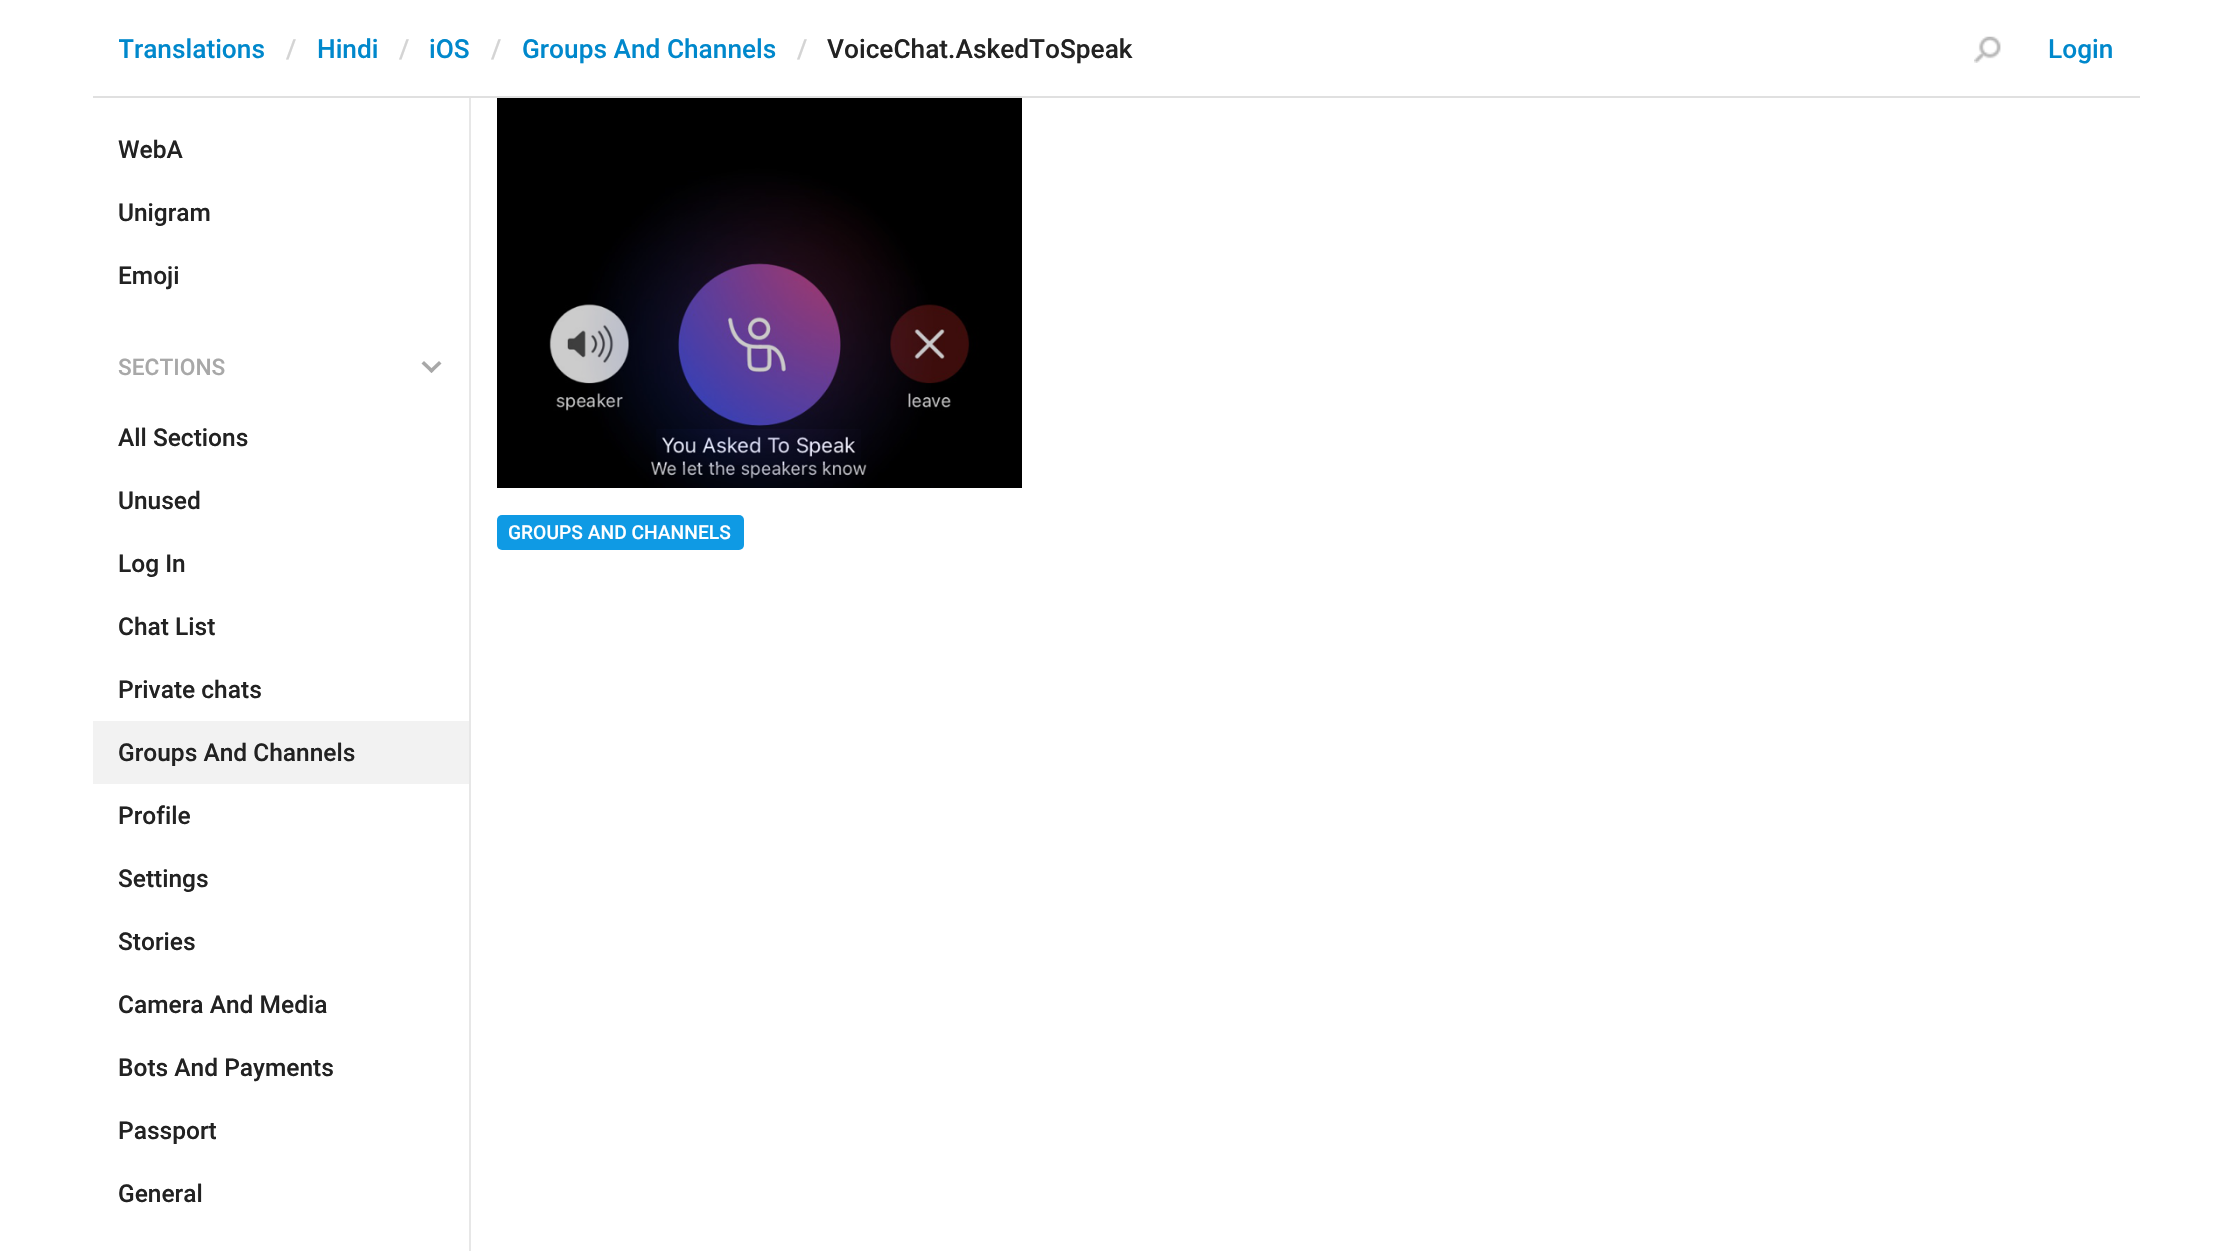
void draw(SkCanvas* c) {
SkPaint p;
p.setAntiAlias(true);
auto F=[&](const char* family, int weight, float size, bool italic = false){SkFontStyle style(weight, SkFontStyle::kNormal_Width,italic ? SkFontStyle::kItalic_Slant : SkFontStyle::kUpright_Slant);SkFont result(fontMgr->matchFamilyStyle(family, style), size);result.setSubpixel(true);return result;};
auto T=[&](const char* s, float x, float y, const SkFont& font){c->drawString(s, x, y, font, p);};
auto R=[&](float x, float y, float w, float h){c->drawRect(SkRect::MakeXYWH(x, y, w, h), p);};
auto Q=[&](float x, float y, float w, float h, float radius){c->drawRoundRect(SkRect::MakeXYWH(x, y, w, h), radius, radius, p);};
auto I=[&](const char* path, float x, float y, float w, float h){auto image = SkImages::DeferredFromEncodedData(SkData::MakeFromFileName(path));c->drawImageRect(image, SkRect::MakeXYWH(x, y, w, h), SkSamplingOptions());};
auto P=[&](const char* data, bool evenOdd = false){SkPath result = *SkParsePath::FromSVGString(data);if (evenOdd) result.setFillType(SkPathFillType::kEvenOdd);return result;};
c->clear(0xffffffff);
p.setColor(0xffe0e0e0);
R(93,96,2047,2);
c->save();
c->clipRect(SkRect::MakeXYWH(119,33,145,35));
auto f1 = F("Roboto",500,26.25);
p.setColor(0xff0088cc);
T("Translations",118,58,f1);
c->restore();
p.setColor(0xffd4d4d4);
T("/",286,58,f1);
p.setColor(0xff0088cc);
T("Hindi",317,58,f1);
p.setColor(0xffd4d4d4);
T("/",399,58,f1);
p.setColor(0xff0088cc);
T("iOS",429,58,f1);
p.setColor(0xffd4d4d4);
T("/",491,58,f1);
p.setColor(0xff0088cc);
T("Groups And Channels",522,58,f1);
p.setColor(0xffd4d4d4);
T("/",797,58,f1);
p.setColor(0xff222222);
T("VoiceChat.AskedToSpeak",827,58,f1);
I("1.png",1974,36,27,27);
p.setColor(0xff0088cc);
T("Login",2048,58,f1);
auto f2 = F("Roboto",500,24.5);
p.setColor(0xff222222);
T("WebA",118,158,f2);
T("Unigram",118,221,f2);
T("Emoji",118,284,f2);
auto f3 = F("Roboto",500,22.75);
p.setColor(0xffa8a8a8);
T("SECTIONS",118,375,f3);
c->drawPath(P("M431.5 373l-10-9.5l2.5-2.5l10 9.5z"),p);
c->drawPath(P("M431.5 373l-2.5-2.5l10-9.5l2.5 2.5z"),p);
p.setColor(0xff222222);
T("All Sections",118,446,f2);
T("Unused",118,509,f2);
T("Log In",118,572,f2);
T("Chat List",118,635,f2);
T("Private chats",118,698,f2);
p.setColor(0xfff2f2f2);
R(93,721,376,63);
p.setColor(0xff222222);
T("Groups And Channels",118,761,f2);
T("Profile",118,824,f2);
T("Settings",118,887,f2);
T("Stories",118,950,f2);
T("Camera And Media",118,1013,f2);
T("Bots And Payments",118,1076,f2);
T("Passport",118,1139,f2);
T("General",118,1202,f2);
p.setColor(0xffe7e7e7);
R(469,98,2,1153);
I("2.png",497,98,525,390);
I("3.png",656,429,205,36);
p.setColor(0xff0f9ae4);
Q(497,515,247,35,5);
auto f4 = F("Roboto",500,19.25);
p.setColor(0xffffffff);
T("GROUPS AND CHANNELS",508,539,f4);
}
